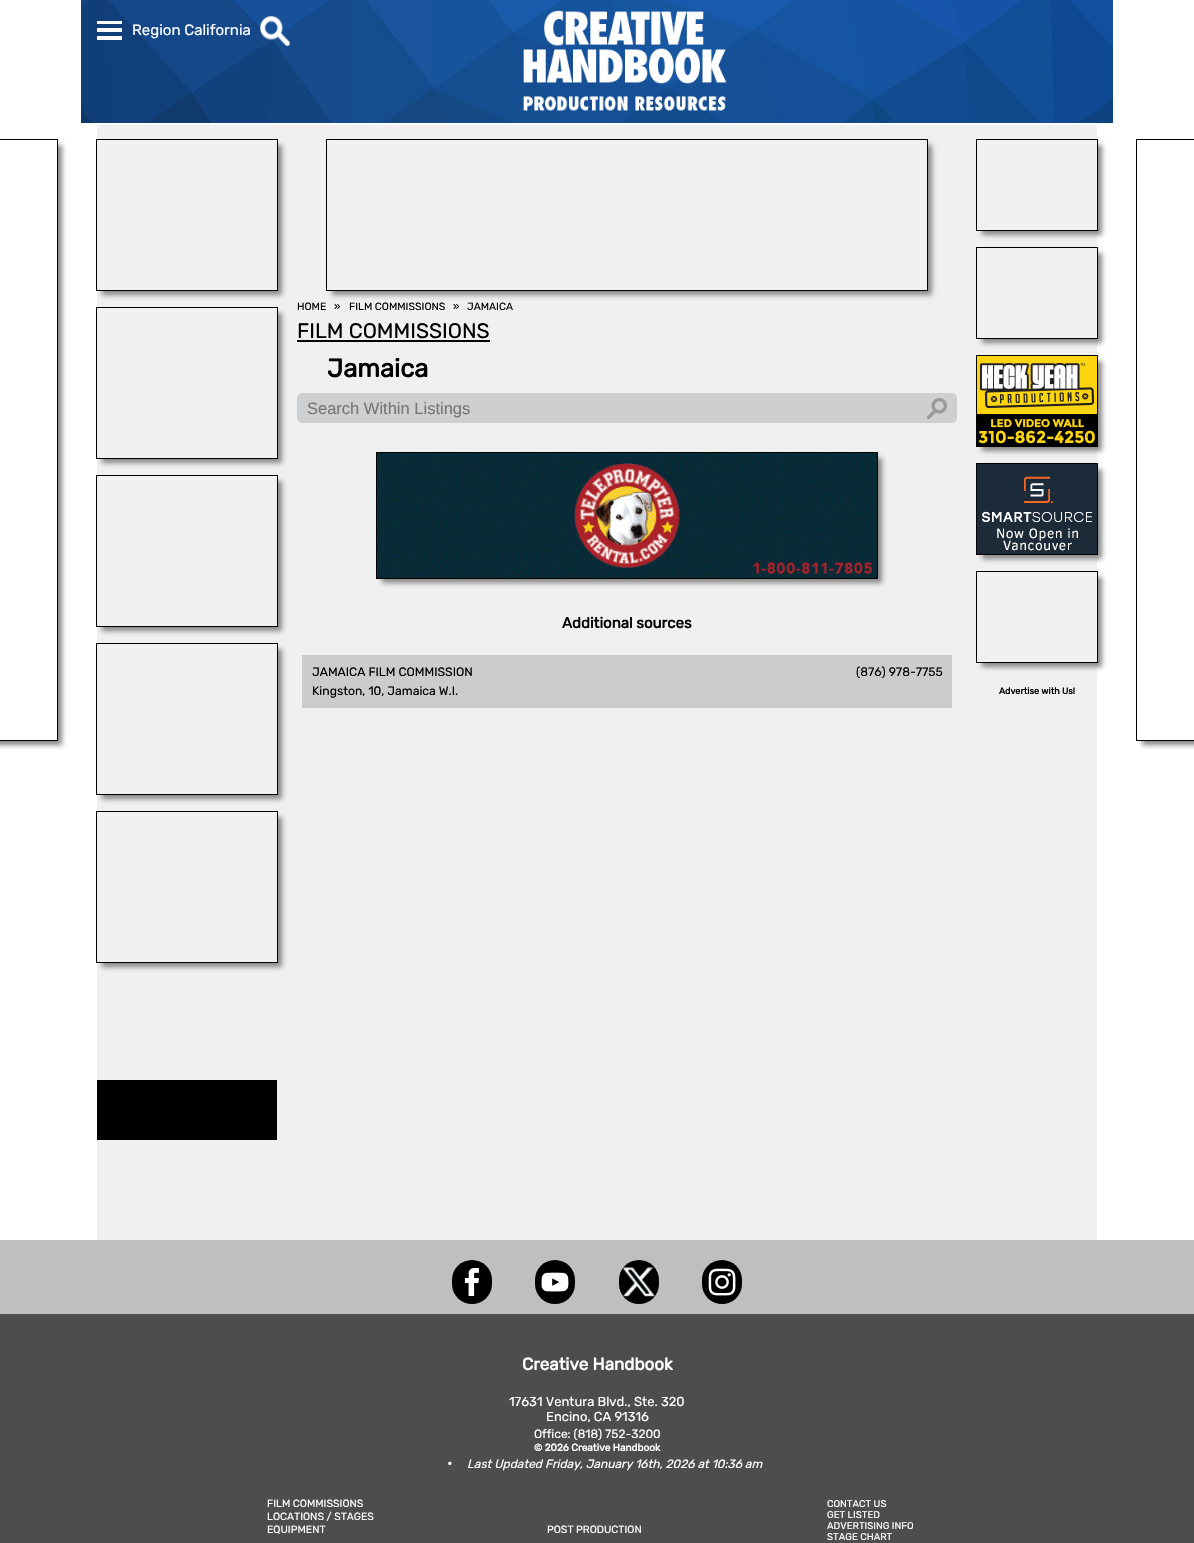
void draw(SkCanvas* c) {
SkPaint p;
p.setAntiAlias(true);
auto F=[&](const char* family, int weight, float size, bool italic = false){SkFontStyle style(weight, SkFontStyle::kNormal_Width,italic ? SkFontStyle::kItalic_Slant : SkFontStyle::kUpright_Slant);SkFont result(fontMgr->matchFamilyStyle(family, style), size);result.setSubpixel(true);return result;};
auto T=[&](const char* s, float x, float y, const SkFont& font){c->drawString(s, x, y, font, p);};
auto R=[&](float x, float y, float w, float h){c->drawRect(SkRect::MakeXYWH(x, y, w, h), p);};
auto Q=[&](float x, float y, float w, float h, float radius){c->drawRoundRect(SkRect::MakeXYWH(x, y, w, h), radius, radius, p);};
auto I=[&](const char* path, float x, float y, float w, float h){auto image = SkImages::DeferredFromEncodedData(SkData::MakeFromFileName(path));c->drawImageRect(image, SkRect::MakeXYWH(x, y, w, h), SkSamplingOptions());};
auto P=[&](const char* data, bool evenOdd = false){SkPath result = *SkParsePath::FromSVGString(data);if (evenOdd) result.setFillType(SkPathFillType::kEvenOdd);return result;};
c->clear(0xffffffff);
I("1.png",81,0,1032,123);
p.setColor(0xffffffff);
R(97,21,25,3);
R(97,28,25,4);
R(97,36,25,4);
auto f1 = F("Rubik",300,15);
T("Region California",132,35,f1);
I("2.png",260,16,30,30);
I("3.png",523,10,204,101);
c->save();
c->clipPath(P("M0 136h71v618h-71zm-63 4h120v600h-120z",true),true);
p.setColor(0xff888888);
p.setMaskFilter(SkMaskFilter::MakeBlur(kNormal_SkBlurStyle, 2.5));
c->drawRect(SkRect::MakeXYWH(-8,145,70,600),p);
p.setMaskFilter(nullptr);
c->restore();
p.setStroke(true);
p.setStrokeWidth(1);
p.setColor(0xff000000);
c->drawRect(SkRect::MakeXYWH(-.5,139.5,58,601),p);
c->save();
c->clipRect(SkRect::MakeXYWH(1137,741,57,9));
p.setStroke(false);
p.setColor(0xff888888);
p.setMaskFilter(SkMaskFilter::MakeBlur(kNormal_SkBlurStyle, 2.5));
c->drawRect(SkRect::MakeXYWH(1142,145,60,600),p);
p.setMaskFilter(nullptr);
c->restore();
p.setStroke(true);
p.setColor(0xff000000);
c->drawRect(SkRect::MakeXYWH(1136.5,139.5,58,601),p);
p.setStroke(false);
p.setColor(0xfff0f0f0);
R(97,125,1000,1115);
c->save();
c->clipPath(P("M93 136h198v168h-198zm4 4h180v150h-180z",true),true);
p.setColor(0xff888888);
p.setMaskFilter(SkMaskFilter::MakeBlur(kNormal_SkBlurStyle, 2.5));
c->drawRect(SkRect::MakeXYWH(102,145,180,150),p);
p.setMaskFilter(nullptr);
c->restore();
p.setStroke(true);
p.setColor(0xff000000);
c->drawRect(SkRect::MakeXYWH(96.5,139.5,181,151),p);
c->save();
c->clipPath(P("M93 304h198v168h-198zm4 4h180v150h-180z",true),true);
p.setStroke(false);
p.setColor(0xff888888);
p.setMaskFilter(SkMaskFilter::MakeBlur(kNormal_SkBlurStyle, 2.5));
c->drawRect(SkRect::MakeXYWH(102,313,180,150),p);
p.setMaskFilter(nullptr);
c->restore();
p.setStroke(true);
p.setColor(0xff000000);
c->drawRect(SkRect::MakeXYWH(96.5,307.5,181,151),p);
c->save();
c->clipPath(P("M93 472h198v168h-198zm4 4h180v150h-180z",true),true);
p.setStroke(false);
p.setColor(0xff888888);
p.setMaskFilter(SkMaskFilter::MakeBlur(kNormal_SkBlurStyle, 2.5));
c->drawRect(SkRect::MakeXYWH(102,481,180,150),p);
p.setMaskFilter(nullptr);
c->restore();
p.setStroke(true);
p.setColor(0xff000000);
c->drawRect(SkRect::MakeXYWH(96.5,475.5,181,151),p);
c->save();
c->clipPath(P("M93 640h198v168h-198zm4 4h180v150h-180z",true),true);
p.setStroke(false);
p.setColor(0xff888888);
p.setMaskFilter(SkMaskFilter::MakeBlur(kNormal_SkBlurStyle, 2.5));
c->drawRect(SkRect::MakeXYWH(102,649,180,150),p);
p.setMaskFilter(nullptr);
c->restore();
p.setStroke(true);
p.setColor(0xff000000);
c->drawRect(SkRect::MakeXYWH(96.5,643.5,181,151),p);
c->save();
c->clipPath(P("M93 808h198v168h-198zm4 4h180v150h-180z",true),true);
p.setStroke(false);
p.setColor(0xff888888);
p.setMaskFilter(SkMaskFilter::MakeBlur(kNormal_SkBlurStyle, 2.5));
c->drawRect(SkRect::MakeXYWH(102,817,180,150),p);
p.setMaskFilter(nullptr);
c->restore();
p.setStroke(true);
p.setColor(0xff000000);
c->drawRect(SkRect::MakeXYWH(96.5,811.5,181,151),p);
p.setStroke(false);
R(97,1080,180,60);
c->save();
c->clipPath(P("M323 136h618v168h-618zm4 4h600v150h-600z",true),true);
p.setColor(0xff888888);
p.setMaskFilter(SkMaskFilter::MakeBlur(kNormal_SkBlurStyle, 2.5));
c->drawRect(SkRect::MakeXYWH(332,145,600,150),p);
p.setMaskFilter(nullptr);
c->restore();
p.setStroke(true);
p.setColor(0xff000000);
c->drawRect(SkRect::MakeXYWH(326.5,139.5,601,151),p);
auto f2 = F("Rubik",300,10.5);
p.setStroke(false);
T("HOME",297,310,f2);
T("»",334,310,f2);
T("FILM COMMISSIONS",349,310,f2);
T("»",453,310,f2);
T("JAMAICA",467,310,f2);
auto f3 = F("Rubik",300,21);
T("FILM COMMISSIONS",297,338,f3);
R(297,340,193,2);
auto f4 = F("Rubik",700,25.5);
T("Jamaica",327,377,f4);
p.setColor(0xffcecfd0);
Q(297,393,660,30,5);
I("4.png",927,398,20,21);
auto f5 = F("Liberation Sans",400,16.5);
p.setColor(0xff757575);
T("Search Within Listings",307,414,f5);
p.setColor(0xff888888);
p.setMaskFilter(SkMaskFilter::MakeBlur(kNormal_SkBlurStyle, 2.5));
c->drawRect(SkRect::MakeXYWH(382,458,500,125),p);
p.setMaskFilter(nullptr);
I("5.png",377,453,500,125);
p.setStroke(true);
p.setColor(0xff000000);
c->drawRect(SkRect::MakeXYWH(376.5,452.5,501,126),p);
auto f6 = F("Rubik",700,15);
p.setStroke(false);
T("Additional sources",562,628,f6);
p.setColor(0xffcccccc);
R(302,655,650,53);
auto f7 = F("Rubik",300,12.2);
p.setColor(0xff000000);
T("JAMAICA FILM COMMISSION",312,676,f7);
T("(876) 978-7755",856,676,f7);
T("Kingston, 10, Jamaica W.I.",312,695,f7);
c->save();
c->clipPath(P("M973 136h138v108h-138zm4 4h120v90h-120z",true),true);
p.setColor(0xff888888);
p.setMaskFilter(SkMaskFilter::MakeBlur(kNormal_SkBlurStyle, 2.5));
c->drawRect(SkRect::MakeXYWH(982,145,120,90),p);
p.setMaskFilter(nullptr);
c->restore();
p.setStroke(true);
p.setColor(0xff000000);
c->drawRect(SkRect::MakeXYWH(976.5,139.5,121,91),p);
c->save();
c->clipPath(P("M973 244h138v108h-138zm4 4h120v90h-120z",true),true);
p.setStroke(false);
p.setColor(0xff888888);
p.setMaskFilter(SkMaskFilter::MakeBlur(kNormal_SkBlurStyle, 2.5));
c->drawRect(SkRect::MakeXYWH(982,253,120,90),p);
p.setMaskFilter(nullptr);
c->restore();
p.setStroke(true);
p.setColor(0xff000000);
c->drawRect(SkRect::MakeXYWH(976.5,247.5,121,91),p);
p.setStroke(false);
p.setColor(0xff888888);
p.setMaskFilter(SkMaskFilter::MakeBlur(kNormal_SkBlurStyle, 2.5));
c->drawRect(SkRect::MakeXYWH(982,361,120,90),p);
p.setMaskFilter(nullptr);
I("6.png",977,356,120,90);
p.setStroke(true);
p.setColor(0xff000000);
c->drawRect(SkRect::MakeXYWH(976.5,355.5,121,91),p);
p.setStroke(false);
p.setColor(0xff888888);
p.setMaskFilter(SkMaskFilter::MakeBlur(kNormal_SkBlurStyle, 2.5));
c->drawRect(SkRect::MakeXYWH(982,469,120,90),p);
p.setMaskFilter(nullptr);
I("7.png",977,464,120,90);
p.setStroke(true);
p.setColor(0xff000000);
c->drawRect(SkRect::MakeXYWH(976.5,463.5,121,91),p);
c->save();
c->clipPath(P("M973 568h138v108h-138zm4 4h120v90h-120z",true),true);
p.setStroke(false);
p.setColor(0xff888888);
p.setMaskFilter(SkMaskFilter::MakeBlur(kNormal_SkBlurStyle, 2.5));
c->drawRect(SkRect::MakeXYWH(982,577,120,90),p);
p.setMaskFilter(nullptr);
c->restore();
p.setStroke(true);
p.setColor(0xff000000);
c->drawRect(SkRect::MakeXYWH(976.5,571.5,121,91),p);
auto f8 = F("Rubik",700,9);
p.setStroke(false);
T("Advertise with Us!",999,694,f8);
p.setColor(0xffbfbfbf);
R(0,1240,1194,74);
p.setColor(0xff000000);
Q(452,1260,40,44,20);
I("8.png",464,1268,15,28);
Q(535,1260,40,44,20);
I("9.png",541,1272,28,20);
Q(619,1260,40,44,20);
I("10.png",623,1267,32,30);
Q(702,1260,40,44,20);
I("11.png",708,1268,28,28);
p.setColor(0xff4d4d4d);
R(0,1314,1194,229);
auto f9 = F("Rubik",700,17);
p.setColor(0xffffffff);
T("Creative Handbook",522,1370,f9);
auto f10 = F("Rubik",300,13);
T("17631 Ventura Blvd., Ste. 320",509,1406,f10);
T("Encino, CA 91316",546,1421,f10);
auto f11 = F("Rubik",300,12);
T("Office: (818) 752-3200",534,1438,f11);
auto f12 = F("Rubik",700,10);
T("© 2026 Creative Handbook",534,1451,f12);
T("•",447,1468,f1);
auto f13 = F("Rubik",300,12,true);
T("Last Updated Friday, January 16th, 2026 at 10:36 am",467,1468,f13);
T("FILM COMMISSIONS",267,1507,f2);
T("LOCATIONS / STAGES",267,1520,f2);
T("EQUIPMENT",267,1533,f2);
T("POST PRODUCTION",547,1533,f2);
auto f14 = F("Rubik",300,9.75);
T("CONTACT US",827,1507,f14);
T("GET LISTED",827,1518,f14);
T("ADVERTISING INFO",827,1529,f14);
T("STAGE CHART",827,1540,f14);
}
